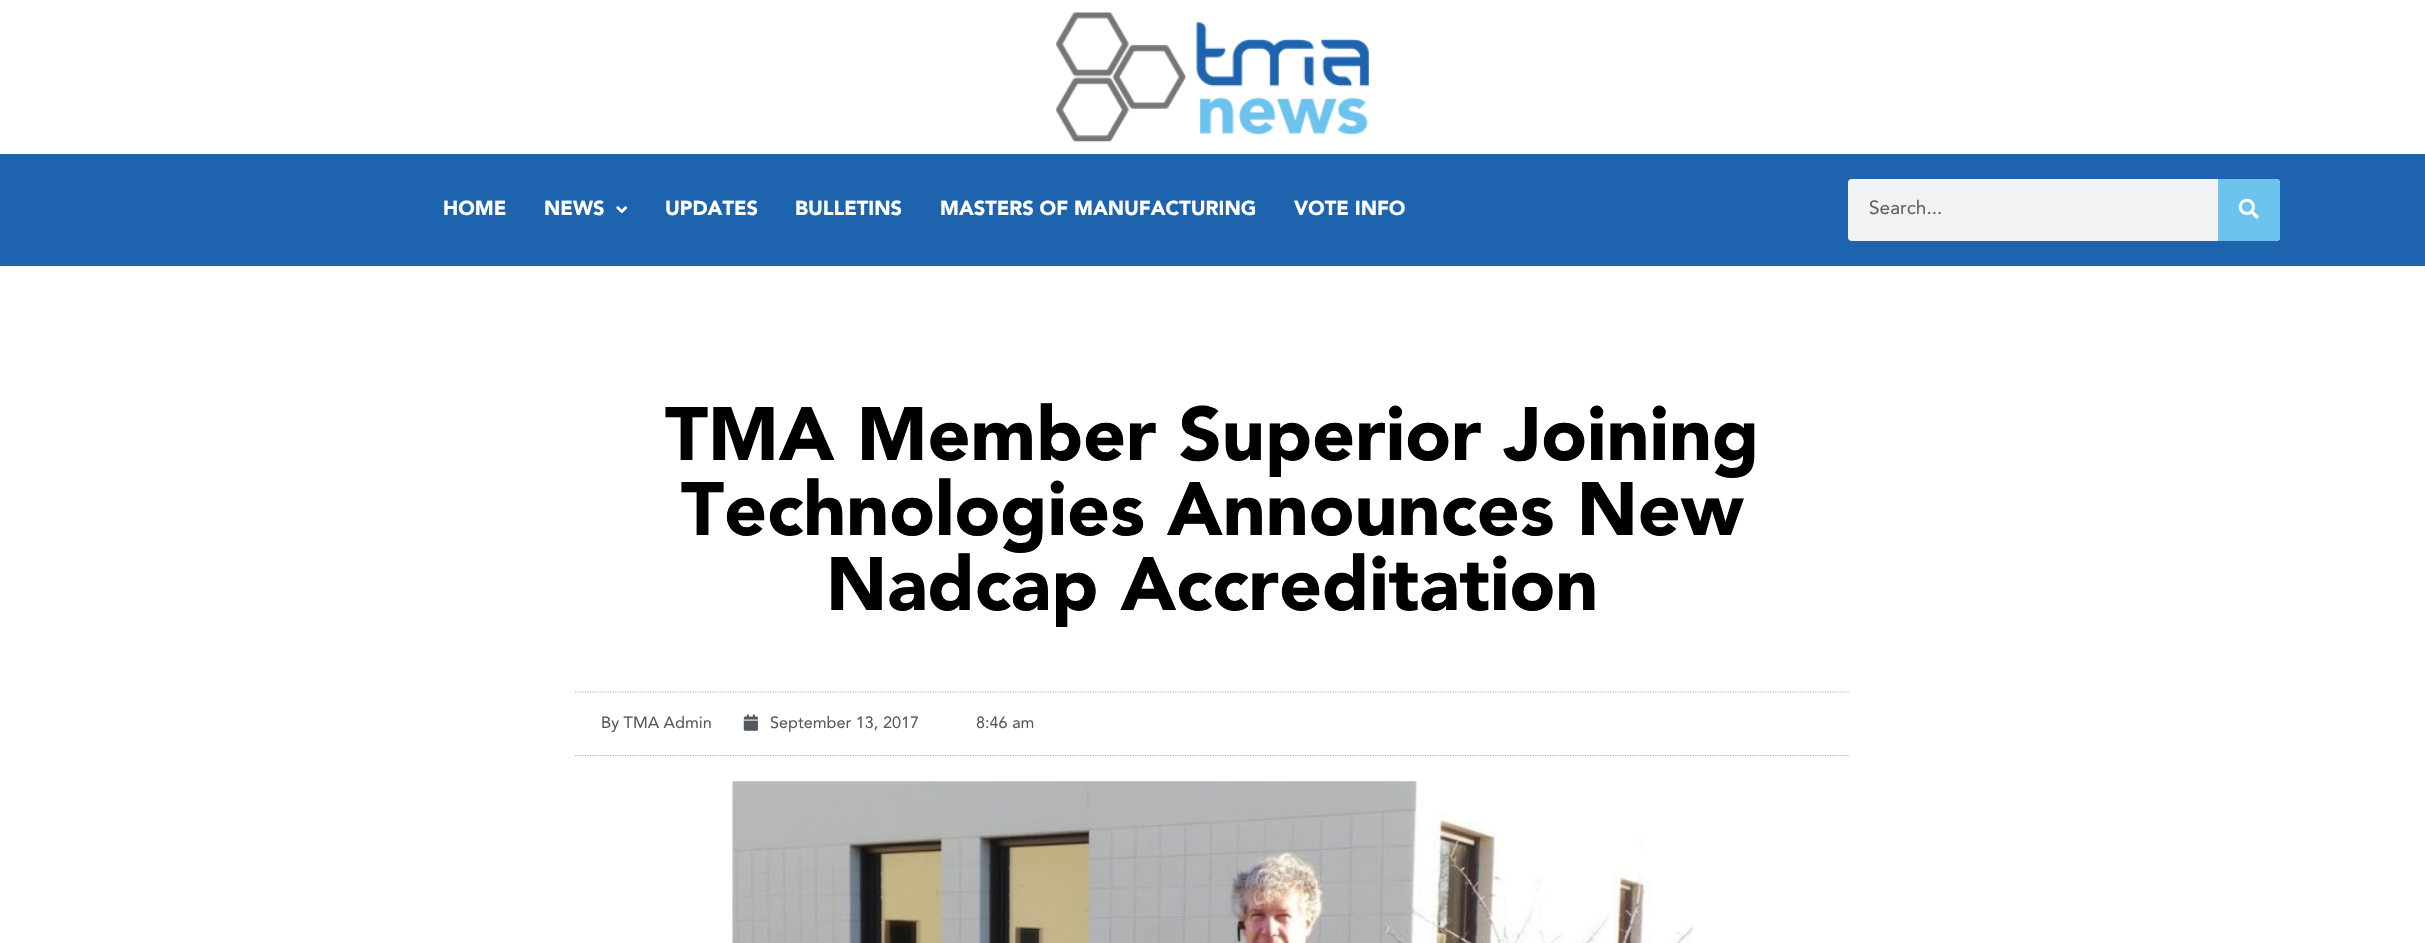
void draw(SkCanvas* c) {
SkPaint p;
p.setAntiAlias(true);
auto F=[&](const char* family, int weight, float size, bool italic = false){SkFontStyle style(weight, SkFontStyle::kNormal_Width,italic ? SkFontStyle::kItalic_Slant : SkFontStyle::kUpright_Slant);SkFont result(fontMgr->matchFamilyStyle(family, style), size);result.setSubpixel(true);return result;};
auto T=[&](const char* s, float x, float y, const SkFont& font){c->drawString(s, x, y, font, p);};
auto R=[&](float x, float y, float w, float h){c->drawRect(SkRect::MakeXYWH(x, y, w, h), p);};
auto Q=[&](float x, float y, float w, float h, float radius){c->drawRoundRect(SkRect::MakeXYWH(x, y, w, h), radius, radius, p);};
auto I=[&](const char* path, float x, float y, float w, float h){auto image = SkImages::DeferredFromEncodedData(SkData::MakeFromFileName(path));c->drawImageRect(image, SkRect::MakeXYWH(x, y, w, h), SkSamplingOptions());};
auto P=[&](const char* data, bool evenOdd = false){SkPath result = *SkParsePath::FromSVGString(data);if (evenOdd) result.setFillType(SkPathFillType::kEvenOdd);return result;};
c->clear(0xffffffff);
I("1.png",1056,12,313,130);
p.setColor(0xff1d63ae);
R(0,154,2425,112);
auto f1 = F("Avenir",900,20);
p.setColor(0xffffffff);
T("HOME",443,215,f1);
T("NEWS",544,215,f1);
I("2.png",616,206,12,8);
T("UPDATES",665,215,f1);
T("BULLETINS",795,215,f1);
T("MASTERS OF MANUFACTURING",940,215,f1);
T("VOTE INFO",1294,215,f1);
p.setColor(0xfff1f2f3);
Q(1848,179,432,62,4);
auto f2 = F("Avenir",400,19);
p.setColor(0xff606161);
T("Search...",1869,214,f2);
p.setColor(0xff6cc3ee);
c->drawPath(P("M2218 179h58c2 0 4 2 4 4v54c0 2-2 4-4 4h-58z"),p);
I("3.png",2238,198,21,21);
auto f3 = F("Avenir",900,75);
p.setColor(0xff000000);
T("TMA Member Superior Joining",665,460,f3);
T("Technologies Announces New",681,535,f3);
T("Nadcap Accreditation",826,610,f3);
p.setStroke(true);
p.setStrokeWidth(1.2);
p.setColor(0xffafafaf);
p.setPathEffect(SkDashPathEffect::Make({{1.25f,1.25f}}, 0));
c->drawPath(P("M575 692h1275"),p);
p.setPathEffect(nullptr);
p.setPathEffect(SkDashPathEffect::Make({{1.25f,1.25f}}, 0));
c->drawPath(P("M575 755.5h1275"),p);
p.setPathEffect(nullptr);
auto f4 = F("Avenir",400,16.25);
p.setStroke(false);
p.setColor(0xff54595f);
T("By TMA Admin",601,728,f4);
I("4.png",743,714,15,17);
T("September 13, 2017",770,728,f4);
T("8:46 am",976,728,f4);
I("5.png",732,781,961,162);
}
